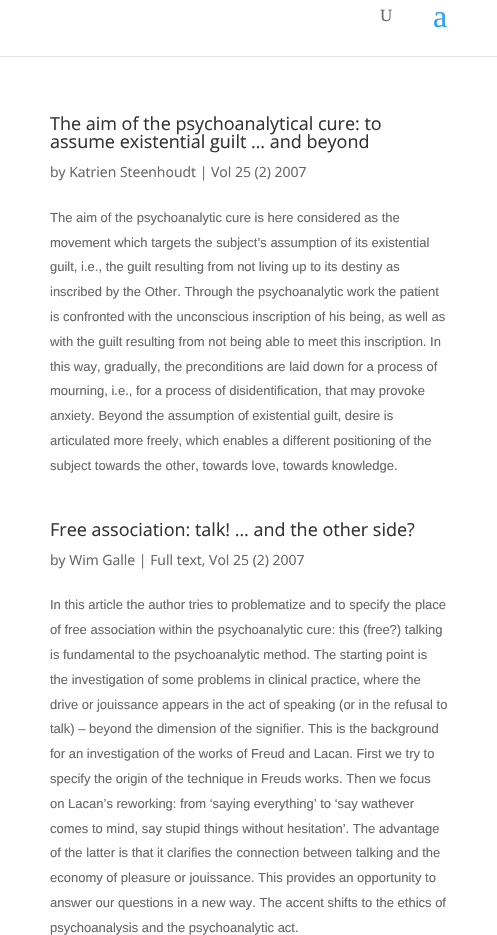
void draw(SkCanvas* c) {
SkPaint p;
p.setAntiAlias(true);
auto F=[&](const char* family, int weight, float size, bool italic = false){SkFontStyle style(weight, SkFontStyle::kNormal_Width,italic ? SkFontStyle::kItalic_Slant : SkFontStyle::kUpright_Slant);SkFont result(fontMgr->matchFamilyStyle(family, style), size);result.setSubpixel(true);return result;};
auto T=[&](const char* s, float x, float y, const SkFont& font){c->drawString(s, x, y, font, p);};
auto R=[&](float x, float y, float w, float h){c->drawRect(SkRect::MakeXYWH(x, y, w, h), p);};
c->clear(0xffffffff);
p.setColor(0xffe6e6e6);
R(0,56,497,1);
auto f1 = F("Liberation Serif",400,17);
p.setColor(0xff666666);
T("U",380,21,f1);
auto f2 = F("Liberation Serif",400,32);
p.setColor(0xff2ea3f2);
T("a",433,27,f2);
auto f3 = F("Open Sans",400,18);
p.setColor(0xff333333);
T("The aim of the psychoanalytical cure: to",50,130,f3);
T("assume existential guilt … and beyond",50,148,f3);
auto f4 = F("Open Sans",400,14);
p.setColor(0xff666666);
T("by Katrien Steenhoudt | Vol 25 (2) 2007",50,177,f4);
auto f5 = F("Liberation Sans",400,13);
T("The aim of the psychoanalytic cure is here considered as the",50,222,f5);
T("movement which targets the subject’s assumption of its existential",50,247,f5);
T("guilt, i.e., the guilt resulting from not living up to its destiny as",50,271,f5);
T("inscribed by the Other. Through the psychoanalytic work the patient",50,296,f5);
T("is confronted with the unconscious inscription of his being, as well as",50,321,f5);
T("with the guilt resulting from not being able to meet this inscription. In",50,346,f5);
T("this way, gradually, the preconditions are laid down for a process of",50,371,f5);
T("mourning, i.e., for a process of disidentification, that may provoke",50,395,f5);
T("anxiety. Beyond the assumption of existential guilt, desire is",50,420,f5);
T("articulated more freely, which enables a different positioning of the",50,445,f5);
T("subject towards the other, towards love, towards knowledge.",50,470,f5);
p.setColor(0xff333333);
T("Free association: talk! … and the other side?",50,536,f3);
p.setColor(0xff666666);
T("by Wim Galle | Full text, Vol 25 (2) 2007",50,565,f4);
T("In this article the author tries to problematize and to specify the place",50,609,f5);
T("of free association within the psychoanalytic cure: this (free?) talking",50,634,f5);
T("is fundamental to the psychoanalytic method. The starting point is",50,659,f5);
T("the investigation of some problems in clinical practice, where the",50,684,f5);
T("drive or jouissance appears in the act of speaking (or in the refusal to",50,709,f5);
T("talk) – beyond the dimension of the signifier. This is the background",50,733,f5);
T("for an investigation of the works of Freud and Lacan. First we try to",50,758,f5);
T("specify the origin of the technique in Freuds works. Then we focus",50,783,f5);
T("on Lacan’s reworking: from ‘saying everything’ to ‘say wathever",50,808,f5);
T("comes to mind, say stupid things without hesitation’. The advantage",50,833,f5);
T("of the latter is that it clarifies the connection between talking and the",50,857,f5);
T("economy of pleasure or jouissance. This provides an opportunity to",50,882,f5);
T("answer our questions in a new way. The accent shifts to the ethics of",50,907,f5);
T("psychoanalysis and the psychoanalytic act.",50,932,f5);
}
